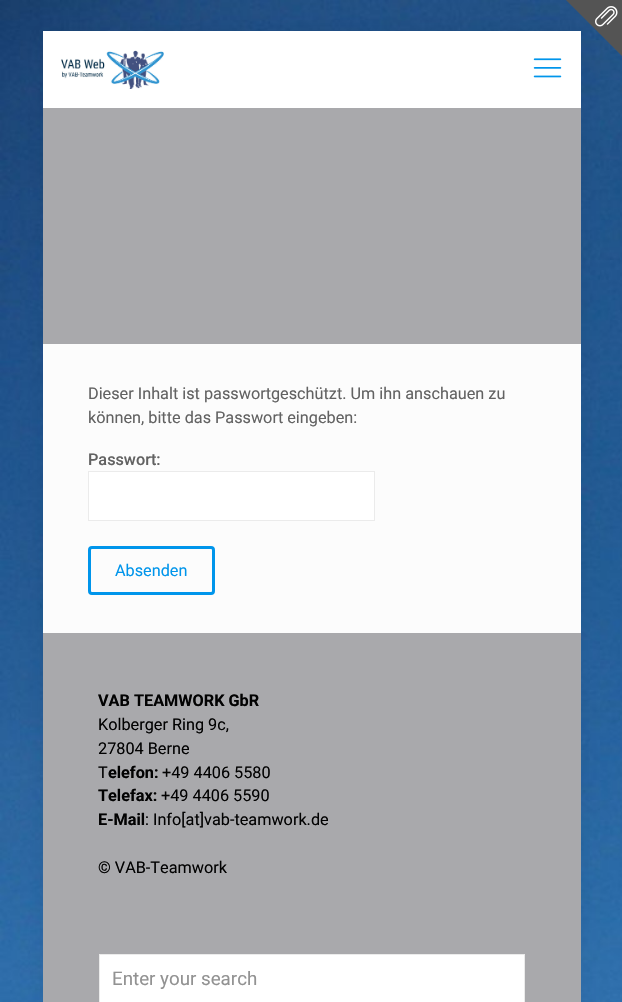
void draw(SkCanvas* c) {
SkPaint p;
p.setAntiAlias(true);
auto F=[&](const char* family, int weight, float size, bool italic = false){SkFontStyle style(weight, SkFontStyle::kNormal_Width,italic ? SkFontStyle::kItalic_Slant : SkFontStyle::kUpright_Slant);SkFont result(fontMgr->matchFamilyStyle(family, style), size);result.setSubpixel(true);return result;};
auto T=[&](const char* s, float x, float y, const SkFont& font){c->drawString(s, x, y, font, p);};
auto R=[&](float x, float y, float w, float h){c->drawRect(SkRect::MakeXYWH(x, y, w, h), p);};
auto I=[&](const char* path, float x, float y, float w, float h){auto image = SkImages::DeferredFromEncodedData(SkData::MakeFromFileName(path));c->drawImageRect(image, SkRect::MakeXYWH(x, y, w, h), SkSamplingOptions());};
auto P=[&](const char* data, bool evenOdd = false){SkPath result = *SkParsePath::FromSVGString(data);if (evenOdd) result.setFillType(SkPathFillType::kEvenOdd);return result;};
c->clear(0xffffffff);
I("1.png",0,0,622,1002);
p.setColor(0x0f000000);
p.setMaskFilter(SkMaskFilter::MakeBlur(kNormal_SkBlurStyle, 9.5));
c->drawRect(SkRect::MakeXYWH(43,31,538,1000),p);
p.setMaskFilter(nullptr);
p.setColor(0xffffffff);
R(43,31,538,77);
p.setColor(0xff545454);
c->drawPath(P("M622 0v56l-56-56z"),p);
I("2.png",595,6,23,21);
p.setColor(0xfffcfcfc);
R(43,344,538,289);
p.setColor(0xffa9a9ac);
R(43,108,538,236);
I("3.png",61,50,103,39);
I("4.png",533,58,29,20);
auto f1 = F("Roboto",400,16.25);
p.setColor(0xff626262);
T("Dieser Inhalt ist passwortgeschützt. Um ihn anschauen zu",88,399,f1);
T("können, bitte das Passwort eingeben:",88,423,f1);
auto f2 = F("Roboto",500,16.25);
T("Passwort:",88,465,f2);
p.setColor(0xffffffff);
c->drawRect(SkRect::MakeXYWH(88.5,471.5,286,49),p);
p.setStroke(true);
p.setStrokeWidth(1);
p.setColor(0xffebebeb);
c->drawRect(SkRect::MakeXYWH(88.5,471.5,286,49),p);
p.setStrokeWidth(3);
p.setColor(0xff0095eb);
c->drawRoundRect(SkRect::MakeXYWH(89.5,547.5,124,46),2.5,2.5,p);
p.setStroke(false);
T("Absenden",115,576,f1);
p.setColor(0xffa9a9ac);
R(43,633,538,369);
auto f3 = F("Roboto",700,16.25);
p.setColor(0xff020202);
T("VAB TEAMWORK GbR",98,706,f3);
T("Kolberger Ring 9c,",98,730,f1);
T("27804 Berne",98,754,f1);
T("T",98,778,f1);
T("elefon:",108,778,f3);
T("+49 4406 5580",162,778,f1);
T("Telefax:",98,801,f3);
T("+49 4406 5590",161,801,f1);
T("E-Mail",98,825,f3);
T(": Info[at]vab-teamwork.de",145,825,f1);
T("© VAB-Teamwork",98,873,f1);
p.setColor(0xffffffff);
c->drawRect(SkRect::MakeXYWH(99.5,954.5,425,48),p);
p.setStroke(true);
p.setStrokeWidth(1);
p.setColor(0xffebebeb);
c->drawRect(SkRect::MakeXYWH(99.5,954.5,425,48),p);
auto f4 = F("Roboto",400,18.75);
p.setStroke(false);
p.setColor(0xff929292);
T("Enter your search",112,985,f4);
}
